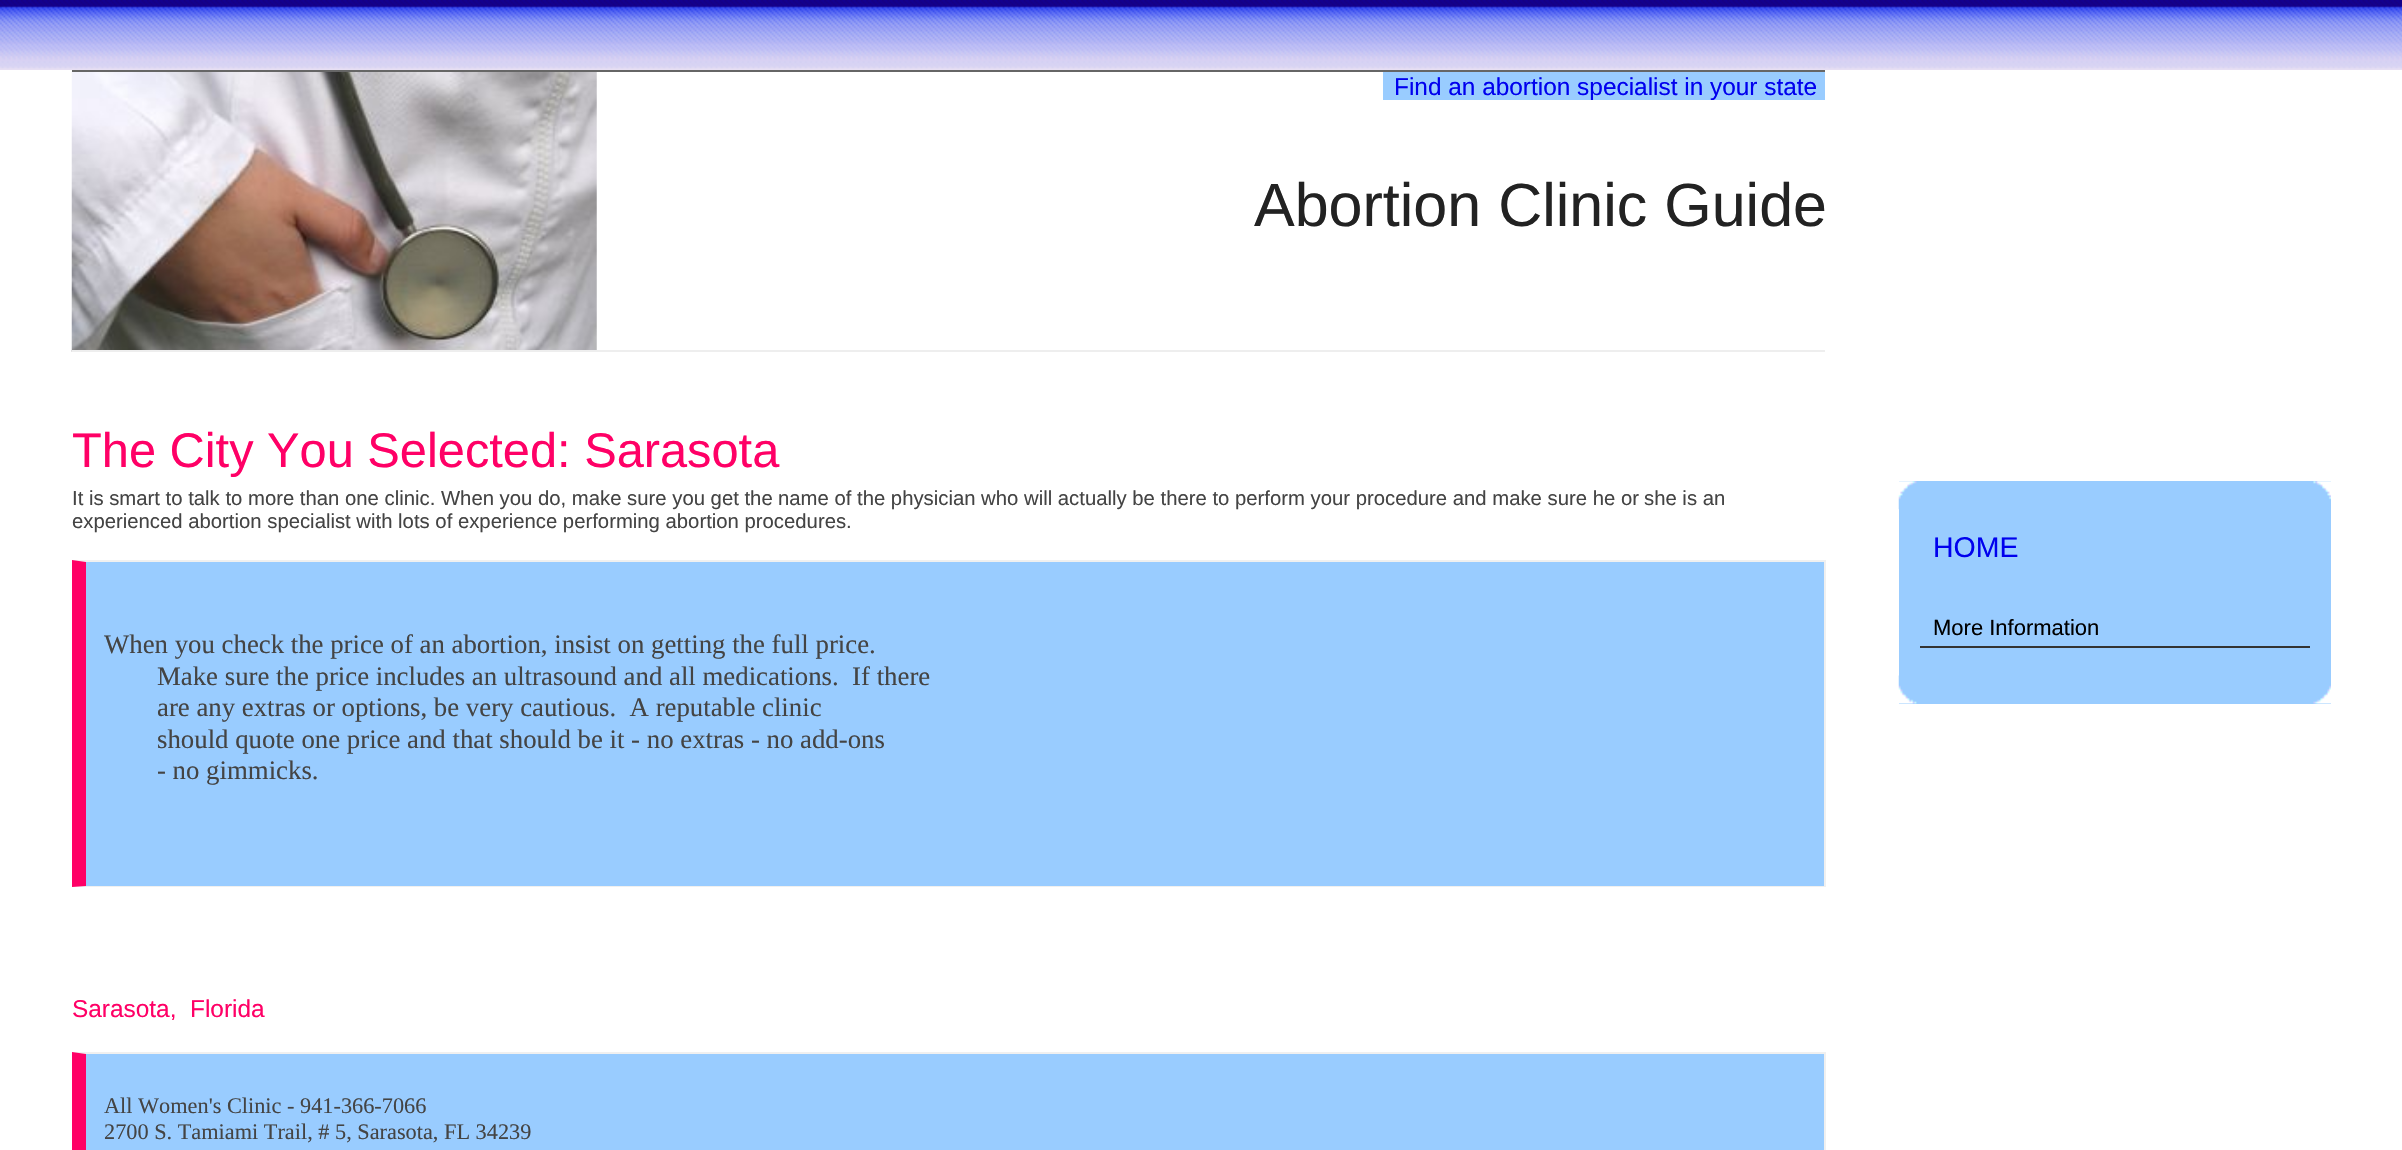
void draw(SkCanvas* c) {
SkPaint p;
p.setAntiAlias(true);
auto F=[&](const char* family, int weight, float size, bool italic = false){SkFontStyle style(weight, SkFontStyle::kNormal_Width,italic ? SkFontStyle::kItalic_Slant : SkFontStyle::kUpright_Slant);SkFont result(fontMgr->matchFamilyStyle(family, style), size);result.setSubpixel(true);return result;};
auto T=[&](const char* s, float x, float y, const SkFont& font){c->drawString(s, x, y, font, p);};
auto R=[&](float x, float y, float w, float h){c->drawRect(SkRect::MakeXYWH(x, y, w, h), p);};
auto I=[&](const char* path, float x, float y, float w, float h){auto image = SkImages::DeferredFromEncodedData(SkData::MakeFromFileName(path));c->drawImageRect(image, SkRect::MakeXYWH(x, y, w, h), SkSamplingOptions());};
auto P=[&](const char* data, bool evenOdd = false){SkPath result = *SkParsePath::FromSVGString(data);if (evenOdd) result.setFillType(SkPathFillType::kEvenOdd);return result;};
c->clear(0xffffffff);
I("1.png",0,0,2402,70);
I("2.png",71,70,526,282);
p.setColor(0xffeeeeee);
R(72,350,1753,2);
p.setColor(0xff666666);
R(72,70,1753,2);
p.setColor(0xff99ccff);
R(1383,72,442,28);
auto f1 = F("Liberation Sans",400,24.4);
p.setColor(0xff0000ee);
T("Find an abortion specialist in your state",1394,95,f1);
auto f2 = F("Liberation Sans",400,61);
p.setColor(0xff222222);
T("Abortion Clinic Guide",1254,226,f2);
auto f3 = F("Liberation Sans",400,48.75);
p.setColor(0xffff0066);
T("The City You Selected: Sarasota",72,467,f3);
auto f4 = F("Liberation Sans",400,20.3);
p.setColor(0xff444444);
T("It is smart to talk to more than one clinic. When you do, make sure you get the",72,505,f4);
T("name of the physician who will actually be there to perform your procedure and make sure he or",778,505,f4);
T("she is an",1644,505,f4);
T("experienced abortion specialist with lots of experience performing abortion procedures.",72,528,f4);
p.setColor(0xff99ccff);
R(86,562,1738,324);
p.setColor(0xfff0f0f0);
c->drawPath(P("M72 560h1753l-1 2h-1738z"),p);
R(1824,560,2,327);
c->drawPath(P("M1825 887h-1753l14-1h1738z"),p);
p.setColor(0xffff0066);
c->drawPath(P("M72 887v-327l14 2v324z"),p);
auto f5 = F("Liberation Serif",400,26.8);
p.setColor(0xff444444);
T("When you check the price of an abortion, insist on getting the full price.",104,653,f5);
T("Make sure the price includes an ultrasound and all medications.  If there",157,685,f5);
T("are any extras or options, be very cautious.  A reputable clinic",157,716,f5);
T("should quote one price and that should be it - no extras - no add-ons",157,748,f5);
T("- no gimmicks.",157,779,f5);
p.setColor(0xffff0066);
T("Sarasota,  Florida",72,1017,f1);
p.setColor(0xff99ccff);
R(86,1054,1738,96);
p.setColor(0xfff0f0f0);
c->drawPath(P("M72 1052h1753l-1 2h-1738z"),p);
R(1824,1052,2,98);
p.setColor(0xffff0066);
c->drawPath(P("M72 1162v-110l14 2v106z"),p);
auto f6 = F("Liberation Serif",400,22.3);
p.setColor(0xff444444);
T("All Women's Clinic - 941-366-7066",104,1113,f6);
T("2700 S. Tamiami Trail, # 5, Sarasota, FL 34239",104,1139,f6);
p.setColor(0xff99ccff);
R(1899,481,432,223);
I("3.png",1898,481,19,29);
I("4.png",2313,481,18,19);
auto f7 = F("Liberation Sans",400,28.5);
p.setColor(0xff0000ee);
T("HOME",1933,557,f7);
p.setColor(0xff333333);
R(1920,646,390,2);
auto f8 = F("Liberation Sans",400,22);
p.setColor(0xff000000);
T("More Information",1933,635,f8);
I("5.png",1898,675,19,29);
I("6.png",2313,685,18,19);
}
